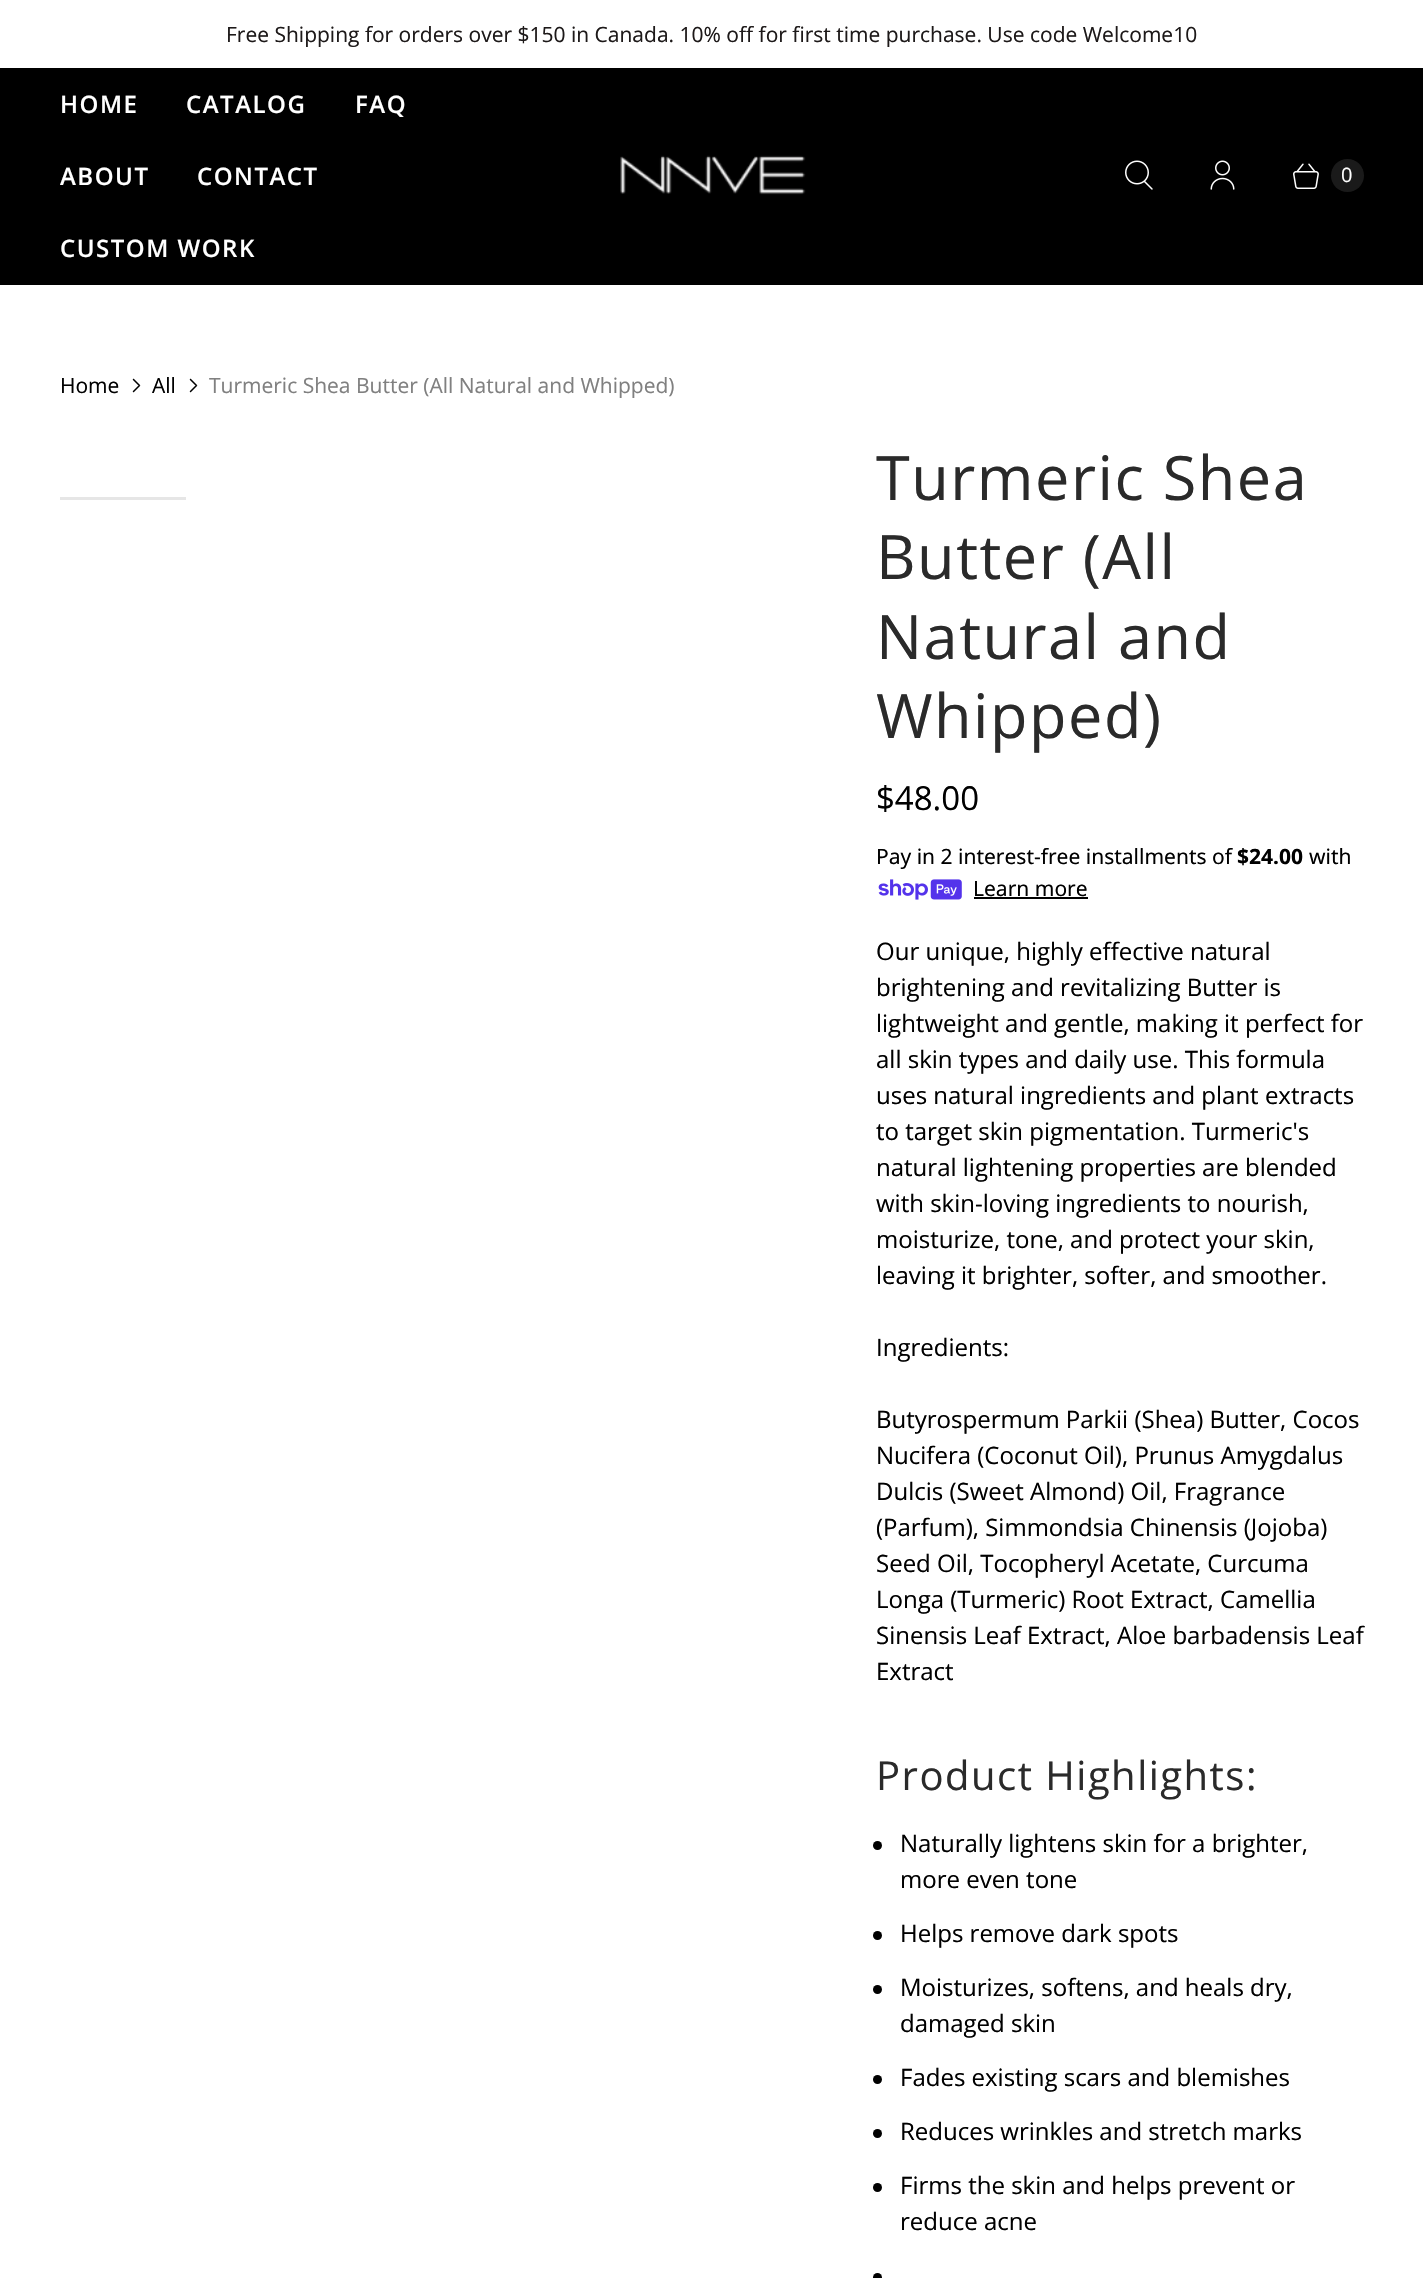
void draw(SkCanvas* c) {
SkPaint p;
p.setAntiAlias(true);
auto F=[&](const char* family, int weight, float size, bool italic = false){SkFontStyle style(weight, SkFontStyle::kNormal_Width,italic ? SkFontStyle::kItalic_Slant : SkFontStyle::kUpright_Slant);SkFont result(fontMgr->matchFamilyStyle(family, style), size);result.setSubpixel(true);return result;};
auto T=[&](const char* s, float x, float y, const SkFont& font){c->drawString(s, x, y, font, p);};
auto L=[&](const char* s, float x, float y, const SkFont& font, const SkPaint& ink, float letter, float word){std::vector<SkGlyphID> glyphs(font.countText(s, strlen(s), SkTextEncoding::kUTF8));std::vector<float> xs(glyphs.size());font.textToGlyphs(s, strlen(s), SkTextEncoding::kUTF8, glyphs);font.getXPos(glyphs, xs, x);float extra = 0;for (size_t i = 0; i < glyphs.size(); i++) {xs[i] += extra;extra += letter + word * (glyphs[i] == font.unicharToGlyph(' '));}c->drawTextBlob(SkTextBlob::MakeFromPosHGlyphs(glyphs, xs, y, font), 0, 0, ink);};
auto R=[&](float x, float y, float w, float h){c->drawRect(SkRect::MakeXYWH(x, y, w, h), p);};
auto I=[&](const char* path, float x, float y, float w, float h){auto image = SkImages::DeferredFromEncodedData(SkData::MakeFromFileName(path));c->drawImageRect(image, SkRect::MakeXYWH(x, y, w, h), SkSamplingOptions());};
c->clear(0xffffffff);
auto f1 = F("Open Sans",400,21);
p.setColor(0xff1d1919);
T("Free Shipping for orders over $150 in Canada. 10% off for first time purchase. Use code Welcome10",226,42,f1);
p.setColor(0xff000000);
R(0,68,1423,217);
auto f2 = F("Open Sans",600,24);
p.setColor(0xffffffff);
L("HOME",60,113,f2,p,1.5,0);
L("CATALOG",186,113,f2,p,1.5,0);
L("FAQ",355,113,f2,p,1.5,0);
L("ABOUT",60,185,f2,p,1.5,0);
L("CONTACT",197,185,f2,p,1.5,0);
L("CUSTOM WORK",60,257,f2,p,1.5,0);
I("1.png",620,155,186,40);
I("2.png",1125,160,28,30);
I("3.png",1210,160,25,30);
I("4.png",1293,163,26,26);
p.setColor(0xff1a1a1a);
c->drawCircle(1347.5,175.5,16.5,p);
auto f3 = F("Open Sans",400,20);
p.setColor(0xffffffff);
T("0",1341,182,f3);
p.setColor(0xff000000);
T("Home",60,393,f1);
I("5.png",132,378,9,15);
T("All",152,393,f1);
I("5.png",189,378,9,15);
p.setColor(0xff808080);
T("Turmeric Shea Butter (All Natural and Whipped)",209,393,f1);
p.setColor(0xffe6e6e6);
R(60,497,126,3);
auto f4 = F("Open Sans",400,61.25);
p.setColor(0xff2a2a2a);
L("Turmeric Shea",876,500,f4,p,1.5,0);
L("Butter (All",876,579,f4,p,1.5,0);
L("Natural and",876,659,f4,p,1.5,0);
L("Whipped)",876,738,f4,p,1.5,0);
auto f5 = F("Open Sans",400,33);
p.setColor(0xff000000);
T("$48.00",876,810,f5);
auto f6 = F("Noto Sans",400,21);
T("Pay in 2 interest-free installments of",876,864,f6);
auto f7 = F("Noto Sans",700,21);
T("$24.00",1237,864,f7);
T("with",1309,864,f6);
I("6.png",878,879,84,21);
T("Learn more",973,896,f6);
R(974,897,114,2);
auto f8 = F("Open Sans",400,24);
T("Our unique, highly effective natural",876,960,f8);
T("brightening and revitalizing Butter is",876,996,f8);
T("lightweight and gentle, making it perfect for",876,1032,f8);
T("all skin types and daily use. This formula",876,1068,f8);
T("uses natural ingredients and plant extracts",876,1104,f8);
T("to target skin pigmentation. Turmeric's",876,1140,f8);
T("natural lightening properties are blended",876,1176,f8);
T("with skin-loving ingredients to nourish,",876,1212,f8);
T("moisturize, tone, and protect your skin,",876,1248,f8);
T("leaving it brighter, softer, and smoother.",876,1284,f8);
T("Ingredients:",876,1356,f8);
T("Butyrospermum Parkii (Shea) Butter, Cocos",876,1428,f8);
T("Nucifera (Coconut Oil), Prunus Amygdalus",876,1464,f8);
T("Dulcis (Sweet Almond) Oil, Fragrance",876,1500,f8);
T("(Parfum), Simmondsia Chinensis (Jojoba)",876,1536,f8);
T("Seed Oil, Tocopheryl Acetate, Curcuma",876,1572,f8);
T("Longa (Turmeric) Root Extract, Camellia",876,1608,f8);
T("Sinensis Leaf Extract, Aloe barbadensis Leaf",876,1644,f8);
T("Extract",876,1680,f8);
auto f9 = F("Open Sans",400,40);
p.setColor(0xff2a2a2a);
L("Product Highlights:",876,1790,f9,p,1.5,0);
p.setColor(0xff000000);
c->drawCircle(877.5,1845.5,4.5,p);
T("Naturally lightens skin for a brighter,",900,1852,f8);
T("more even tone",900,1888,f8);
c->drawCircle(877.5,1935.5,4.5,p);
T("Helps remove dark spots",900,1942,f8);
c->drawCircle(877.5,1989.5,4.5,p);
T("Moisturizes, softens, and heals dry,",900,1996,f8);
T("damaged skin",900,2032,f8);
c->drawCircle(877.5,2079.5,4.5,p);
T("Fades existing scars and blemishes",900,2086,f8);
c->drawCircle(877.5,2133.5,4.5,p);
T("Reduces wrinkles and stretch marks",900,2140,f8);
c->drawCircle(877.5,2187.5,4.5,p);
T("Firms the skin and helps prevent or",900,2194,f8);
T("reduce acne",900,2230,f8);
c->drawCircle(877.5,2277.5,4.5,p);
}
